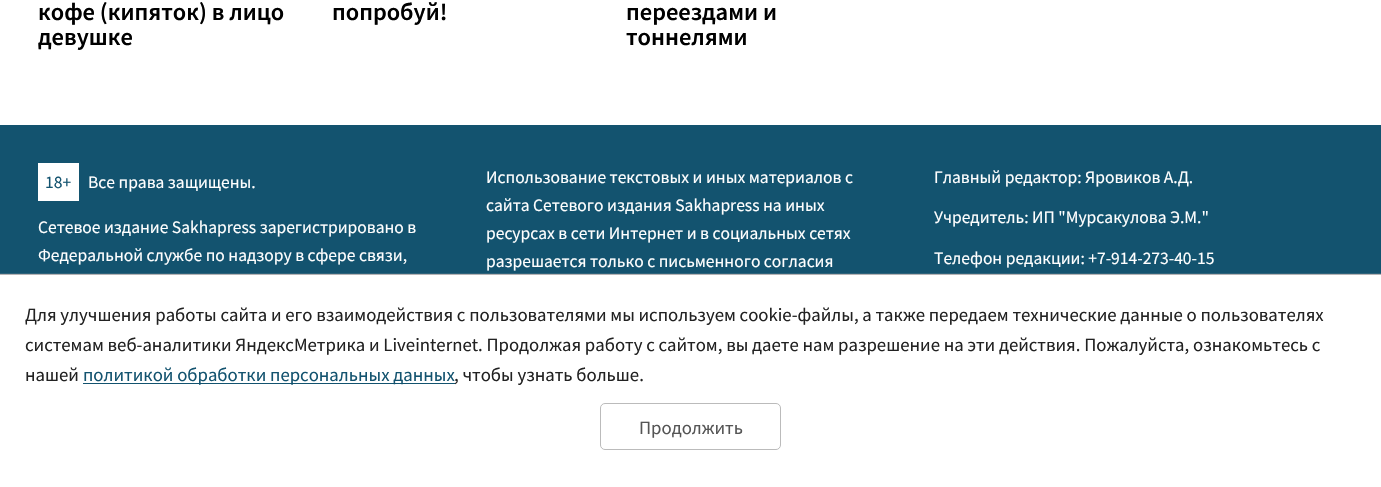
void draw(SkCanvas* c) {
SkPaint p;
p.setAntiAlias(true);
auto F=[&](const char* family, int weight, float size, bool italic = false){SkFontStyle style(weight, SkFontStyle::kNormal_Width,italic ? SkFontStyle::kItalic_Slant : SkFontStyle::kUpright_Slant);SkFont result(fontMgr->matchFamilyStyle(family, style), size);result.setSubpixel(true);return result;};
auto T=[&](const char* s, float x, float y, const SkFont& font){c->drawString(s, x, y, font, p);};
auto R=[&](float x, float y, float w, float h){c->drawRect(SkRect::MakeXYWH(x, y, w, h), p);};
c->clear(0xffffffff);
auto f1 = F("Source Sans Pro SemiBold",600,24.4);
p.setColor(0xff000000);
T("кофе (кипяток) в лицо",38,20,f1);
T("девушке",38,45,f1);
T("попробуй!",332,20,f1);
T("переездами и",626,20,f1);
T("тоннелями",626,45,f1);
p.setColor(0xff13536f);
R(0,125,1381,150);
p.setColor(0xffffffff);
R(38,163,41,38);
auto f2 = F("Source Sans Pro",400,17.5);
p.setColor(0xff13536f);
T("18+",45,188,f2);
p.setColor(0xffffffff);
T("Все права защищены.",88,188,f2);
T("Сетевое издание Sakhapress зарегистрировано в",38,233,f2);
T("Федеральной службе по надзору в сфере связи,",38,261,f2);
T("Использование текстовых и иных материалов с",486,183,f2);
T("сайта Сетевого издания Sakhapress на иных",486,211,f2);
T("ресурсах в сети Интернет и в социальных сетях",486,239,f2);
T("разрешается только с письменного согласия",486,267,f2);
T("Главный редактор: Яровиков А.Д.",934,183,f2);
T("Учредитель: ИП \"Мурсакулова Э.М.\"",934,223,f2);
T("Телефон редакции: +7-914-273-40-15",934,264,f2);
p.setColor(0xffb5b3b5);
p.setMaskFilter(SkMaskFilter::MakeBlur(kNormal_SkBlurStyle, .5));
c->drawRect(SkRect::MakeXYWH(0,274,1381,212),p);
p.setMaskFilter(nullptr);
p.setColor(0xffffffff);
R(0,275,1381,212);
auto f3 = F("Source Sans Pro",400,18.75);
p.setColor(0xff222222);
T("Для улучшения работы сайта и его взаимодействия с пользователями мы используем cookie-файлы, а также передаем технические данные о пользователях",25,321,f3);
T("системам веб-аналитики ЯндексМетрика и Liveinternet. Продолжая работу с сайтом, вы даете нам разрешение на эти действия. Пожалуйста, ознакомьтесь с",25,351,f3);
T("нашей",25,381,f3);
p.setColor(0xff13536f);
R(83,383,372,1);
T("политикой обработки персональных данных",83,381,f3);
p.setColor(0xff222222);
T(", чтобы узнать больше.",454,381,f3);
p.setStroke(true);
p.setStrokeWidth(1);
p.setColor(0xffbbbbbb);
c->drawRoundRect(SkRect::MakeXYWH(600.5,403.5,180,46),4.5,4.5,p);
p.setStroke(false);
p.setColor(0xff555555);
T("Продолжить",639,434,f3);
}
